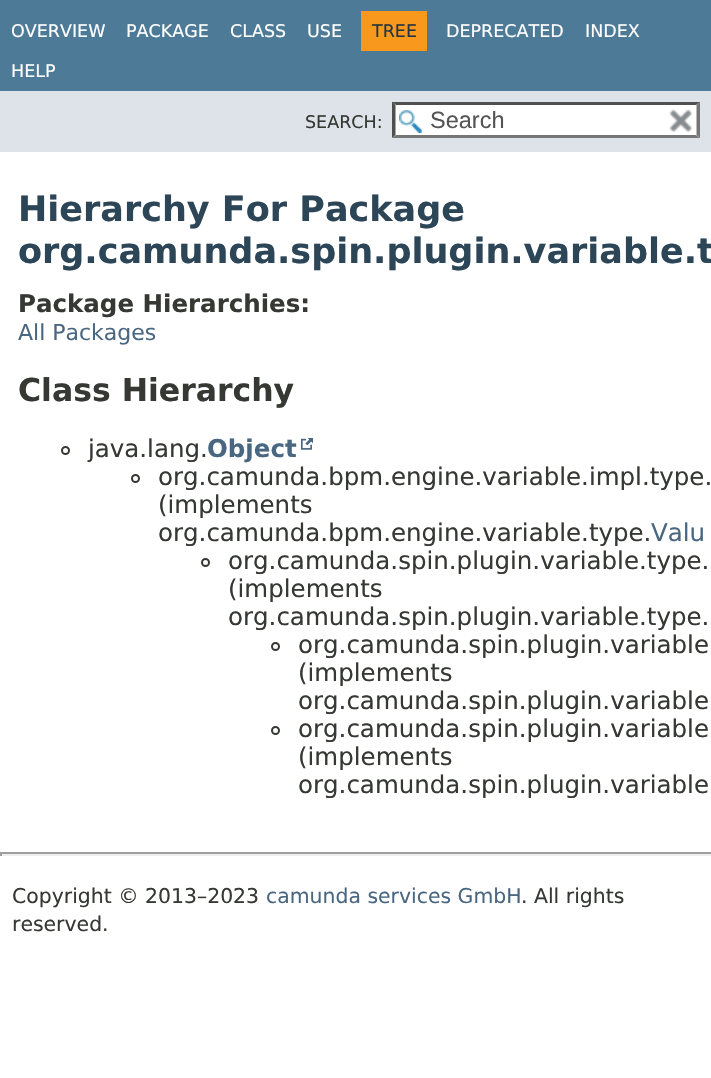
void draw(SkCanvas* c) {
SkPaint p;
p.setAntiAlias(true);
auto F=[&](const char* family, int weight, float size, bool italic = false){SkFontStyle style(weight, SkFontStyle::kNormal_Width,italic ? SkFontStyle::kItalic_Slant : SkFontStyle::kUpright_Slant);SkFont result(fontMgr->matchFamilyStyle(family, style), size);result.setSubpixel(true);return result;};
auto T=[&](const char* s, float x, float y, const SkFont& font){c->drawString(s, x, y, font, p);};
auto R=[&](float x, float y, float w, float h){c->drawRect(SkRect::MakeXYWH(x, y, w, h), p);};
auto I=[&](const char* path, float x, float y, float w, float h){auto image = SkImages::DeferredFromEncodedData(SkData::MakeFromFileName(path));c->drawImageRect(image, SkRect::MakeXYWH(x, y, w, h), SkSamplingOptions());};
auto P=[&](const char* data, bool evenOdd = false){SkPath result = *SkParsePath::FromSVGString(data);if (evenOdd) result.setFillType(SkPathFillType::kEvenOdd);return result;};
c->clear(0xffffffff);
p.setColor(0xff4d7a97);
R(0,0,711,91);
auto f1 = F("DejaVu Sans",400,17.5);
p.setColor(0xffffffff);
T("OVERVIEW",11,37,f1);
T("PACKAGE",126,37,f1);
T("CLASS",230,37,f1);
T("USE",307,37,f1);
p.setColor(0xfff8981d);
R(361,11,66,40);
p.setColor(0xff253441);
T("TREE",372,37,f1);
p.setColor(0xffffffff);
T("DEPRECATED",446,37,f1);
T("INDEX",585,37,f1);
T("HELP",11,77,f1);
p.setColor(0xffdee3e9);
R(0,91,711,61);
p.setColor(0xff353833);
T("SEARCH:",305,128,f1);
p.setColor(0xffffffff);
R(392,102,308,36);
I("1.png",399,110,23,23);
p.setColor(0xff4f4f4f);
c->drawPath(P("M392 102h308l-4 3h-300z"),p);
p.setColor(0xff767676);
c->drawPath(P("M700 101.5v36.5l-3.5-3v-30z"),p);
c->drawPath(P("M700 138h-308l4-3h300z"),p);
p.setColor(0xff4f4f4f);
c->drawPath(P("M392 138v-36.5l3.5 3.5v30z"),p);
auto f2 = F("Liberation Sans",400,23.5);
p.setColor(0xff545454);
T("Search",430,128,f2);
I("2.png",669,109,23,23);
auto f3 = F("DejaVu Sans",700,35);
p.setColor(0xff2c4557);
T("Hierarchy For Package",18,221,f3);
T("org.camunda.spin.plugin.variable.t",18,263,f3);
auto f4 = F("DejaVu Sans",700,24.5);
p.setColor(0xff353833);
T("Package Hierarchies:",18,312,f4);
auto f5 = F("DejaVu Sans",400,22);
p.setColor(0xff4a6782);
T("All Packages",18,340,f5);
auto f6 = F("DejaVu Sans",700,31.5);
p.setColor(0xff353833);
T("Class Hierarchy",18,401,f6);
p.setStroke(true);
p.setStrokeWidth(2);
c->drawCircle(65.5,450.5,3.5,p);
auto f7 = F("DejaVu Sans",400,24.5);
p.setStroke(false);
T("java.lang.",88,457,f7);
p.setColor(0xff4a6782);
T("Object",207,457,f4);
I("3.png",301,438,12,12);
p.setStroke(true);
p.setColor(0xff353833);
c->drawCircle(135.5,478.5,3.5,p);
p.setStroke(false);
T("org.camunda.bpm.engine.variable.impl.type.",158,485,f7);
T("(implements",158,513,f7);
T("org.camunda.bpm.engine.variable.type.",158,541,f7);
p.setColor(0xff4a6782);
T("Valu",651,541,f7);
p.setStroke(true);
p.setColor(0xff353833);
c->drawCircle(205.5,562.5,3.5,p);
p.setStroke(false);
T("org.camunda.spin.plugin.variable.type.",228,569,f7);
T("(implements",228,597,f7);
T("org.camunda.spin.plugin.variable.type.",228,625,f7);
p.setStroke(true);
c->drawCircle(275.5,646.5,3.5,p);
p.setStroke(false);
T("org.camunda.spin.plugin.variable",298,653,f7);
T("(implements",298,681,f7);
T("org.camunda.spin.plugin.variable",298,709,f7);
p.setStroke(true);
c->drawCircle(275.5,730.5,3.5,p);
p.setStroke(false);
T("org.camunda.spin.plugin.variable",298,737,f7);
T("(implements",298,765,f7);
T("org.camunda.spin.plugin.variable",298,793,f7);
p.setColor(0xff9f9f9f);
R(0,852,711,2);
p.setColor(0xffeeeeee);
R(0,854,711,2);
p.setColor(0xff9f9f9f);
R(0,852,2,4);
auto f8 = F("DejaVu Sans",400,20.4);
p.setColor(0xff353833);
T("Copyright © 2013–2023",12,903,f8);
p.setColor(0xff4a6782);
T("camunda services GmbH",266,903,f8);
p.setColor(0xff353833);
T(". All rights",521,903,f8);
T("reserved.",12,931,f8);
}
